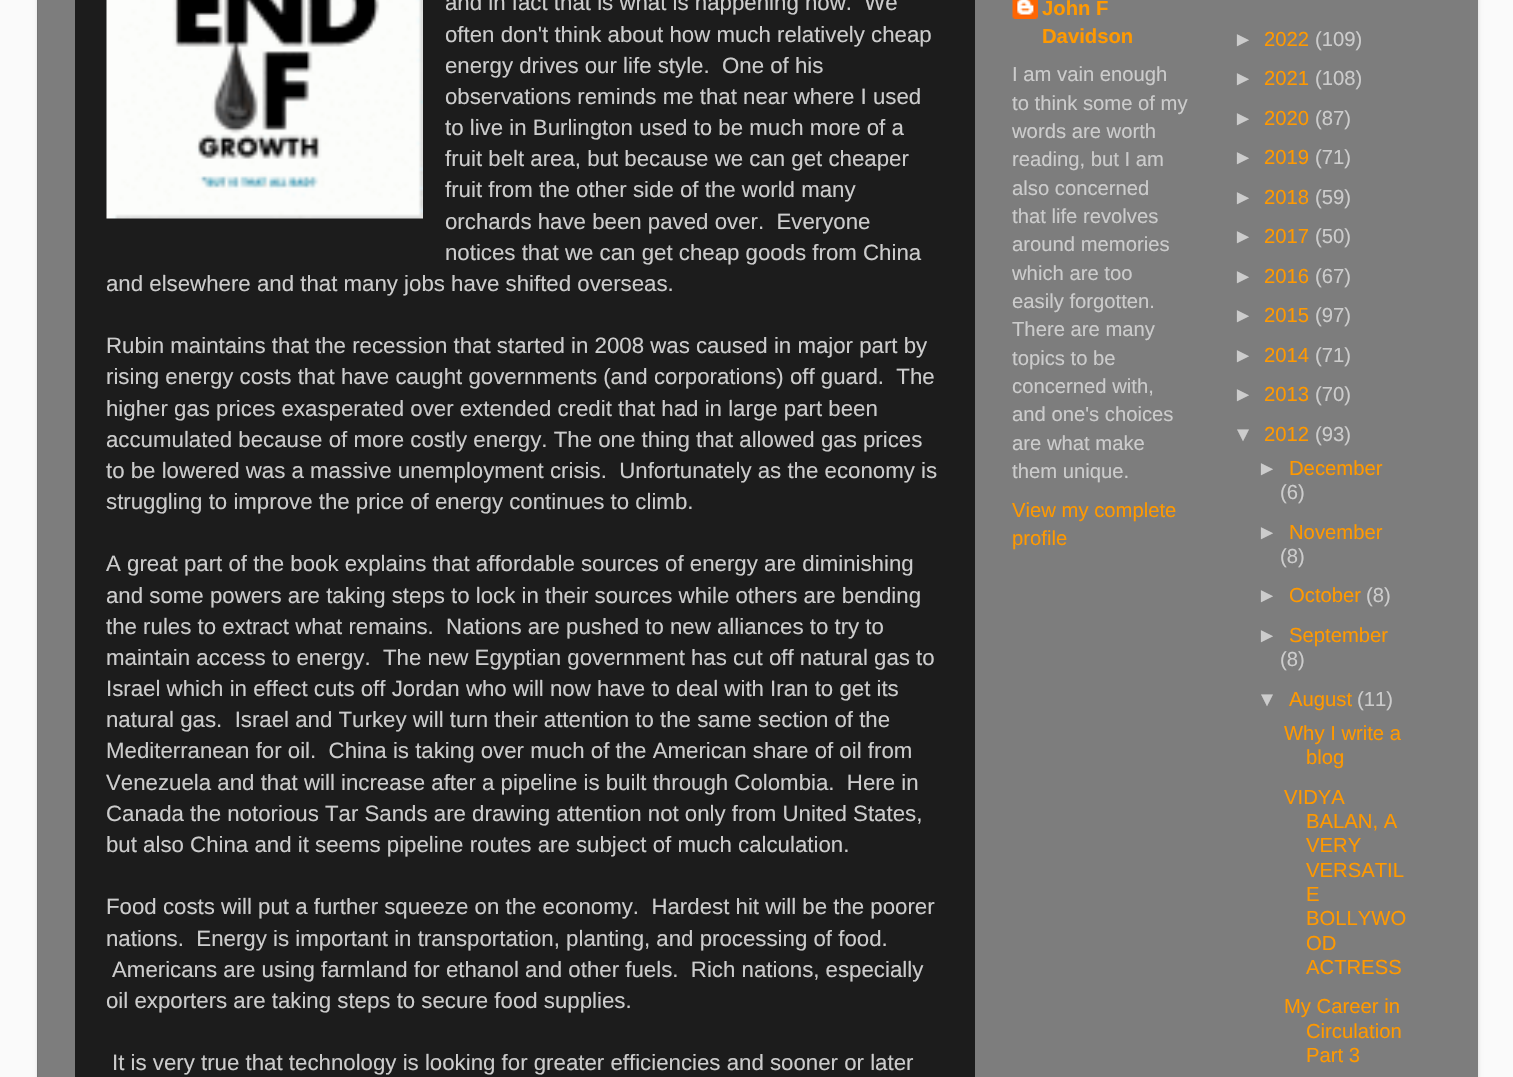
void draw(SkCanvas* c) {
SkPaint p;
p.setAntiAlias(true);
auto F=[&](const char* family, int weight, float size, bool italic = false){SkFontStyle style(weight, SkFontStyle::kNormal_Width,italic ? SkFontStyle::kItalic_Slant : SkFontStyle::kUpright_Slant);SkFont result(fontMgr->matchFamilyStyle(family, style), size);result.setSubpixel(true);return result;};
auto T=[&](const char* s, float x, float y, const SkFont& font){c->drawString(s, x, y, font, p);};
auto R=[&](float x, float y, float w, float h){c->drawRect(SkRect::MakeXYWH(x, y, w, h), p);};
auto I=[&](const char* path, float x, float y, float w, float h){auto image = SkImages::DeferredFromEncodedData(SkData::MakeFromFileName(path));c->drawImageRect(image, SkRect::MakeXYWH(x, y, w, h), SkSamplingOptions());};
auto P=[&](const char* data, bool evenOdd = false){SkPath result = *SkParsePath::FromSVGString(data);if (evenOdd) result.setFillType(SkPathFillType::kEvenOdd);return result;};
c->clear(0xfffafafa);
c->save();
c->clipPath(P("M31 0h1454v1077h-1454zm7-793h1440v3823h-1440z",true),true);
p.setColor(0x26000000);
p.setMaskFilter(SkMaskFilter::MakeBlur(kNormal_SkBlurStyle, 2));
c->drawRect(SkRect::MakeXYWH(38,-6,1440,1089),p);
p.setMaskFilter(nullptr);
c->restore();
p.setColor(0x80000000);
R(37,0,1441,1077);
p.setColor(0xff1c1c1c);
R(75,0,900,1077);
I("1.png",106,0,317,219);
auto f1 = F("Liberation Sans",400,22.25);
p.setColor(0xffcccccc);
T("and in fact that is what is happening now.  We",445,10,f1);
T("often don't think about how much relatively cheap",445,42,f1);
T("energy drives our life style.  One of his",445,73,f1);
T("observations reminds me that near where I used",445,104,f1);
T("to live in Burlington used to be much more of a",445,135,f1);
T("fruit belt area, but because we can get cheaper",445,166,f1);
T("fruit from the other side of the world many",445,197,f1);
T("orchards have been paved over.  Everyone",445,229,f1);
T("notices that we can get cheap goods from China",445,260,f1);
T("and elsewhere and that many jobs have shifted overseas.",106,291,f1);
T("Rubin maintains that the recession that started in 2008 was caused in major part by",106,353,f1);
T("rising energy costs that have caught governments (and corporations) off guard.  The",106,384,f1);
T("higher gas prices exasperated over extended credit that had in large part been",106,416,f1);
T("accumulated because of more costly energy. The one thing that allowed gas prices",106,447,f1);
T("to be lowered was a massive unemployment crisis.  Unfortunately as the economy is",106,478,f1);
T("struggling to improve the price of energy continues to climb.",106,509,f1);
T("A great part of the book explains that affordable sources of energy are diminishing",106,571,f1);
T("and some powers are taking steps to lock in their sources while others are bending",106,603,f1);
T("the rules to extract what remains.  Nations are pushed to new alliances to try to",106,634,f1);
T("maintain access to energy.  The new Egyptian government has cut off natural gas to",106,665,f1);
T("Israel which in effect cuts off Jordan who will now have to deal with Iran to get its",106,696,f1);
T("natural gas.  Israel and Turkey will turn their attention to the same section of the",106,727,f1);
T("Mediterranean for oil.  China is taking over much of the American share of oil from",106,758,f1);
T("Venezuela and that will increase after a pipeline is built through Colombia.  Here in",106,790,f1);
T("Canada the notorious Tar Sands are drawing attention not only from United States,",106,821,f1);
T("but also China and it seems pipeline routes are subject of much calculation.",106,852,f1);
T("Food costs will put a further squeeze on the economy.  Hardest hit will be the poorer",106,914,f1);
T("nations.  Energy is important in transportation, planting, and processing of food.",106,946,f1);
T("Americans are using farmland for ethanol and other fuels.  Rich nations, especially",112,977,f1);
T("oil exporters are taking steps to secure food supplies.",106,1008,f1);
T("It is very true that technology is looking for greater efficiencies and sooner or later",112,1070,f1);
I("2.png",1012,0,26,19);
auto f2 = F("Liberation Sans",700,20.25);
p.setColor(0xffff9900);
T("John F",1042,15,f2);
T("Davidson",1042,43,f2);
auto f3 = F("Liberation Sans",400,20.25);
p.setColor(0xffcccccc);
T("I am vain enough",1012,81,f3);
T("to think some of my",1012,110,f3);
T("words are worth",1012,138,f3);
T("reading, but I am",1012,166,f3);
T("also concerned",1012,195,f3);
T("that life revolves",1012,223,f3);
T("around memories",1012,251,f3);
T("which are too",1012,280,f3);
T("easily forgotten.",1012,308,f3);
T("There are many",1012,336,f3);
T("topics to be",1012,365,f3);
T("concerned with,",1012,393,f3);
T("and one's choices",1012,421,f3);
T("are what make",1012,450,f3);
T("them unique.",1012,478,f3);
p.setColor(0xffff9900);
T("View my complete",1012,517,f3);
T("profile",1012,545,f3);
p.setColor(0xffcccccc);
T("►",1233,46,f3);
p.setColor(0xffff9900);
T("2022",1264,46,f3);
p.setColor(0xffcccccc);
T("(109)",1315,46,f3);
T("►",1233,85,f3);
p.setColor(0xffff9900);
T("2021",1264,85,f3);
p.setColor(0xffcccccc);
T("(108)",1315,85,f3);
T("►",1233,125,f3);
p.setColor(0xffff9900);
T("2020",1264,125,f3);
p.setColor(0xffcccccc);
T("(87)",1315,125,f3);
T("►",1233,164,f3);
p.setColor(0xffff9900);
T("2019",1264,164,f3);
p.setColor(0xffcccccc);
T("(71)",1315,164,f3);
T("►",1233,204,f3);
p.setColor(0xffff9900);
T("2018",1264,204,f3);
p.setColor(0xffcccccc);
T("(59)",1315,204,f3);
T("►",1233,243,f3);
p.setColor(0xffff9900);
T("2017",1264,243,f3);
p.setColor(0xffcccccc);
T("(50)",1315,243,f3);
T("►",1233,283,f3);
p.setColor(0xffff9900);
T("2016",1264,283,f3);
p.setColor(0xffcccccc);
T("(67)",1315,283,f3);
T("►",1233,322,f3);
p.setColor(0xffff9900);
T("2015",1264,322,f3);
p.setColor(0xffcccccc);
T("(97)",1315,322,f3);
T("►",1233,362,f3);
p.setColor(0xffff9900);
T("2014",1264,362,f3);
p.setColor(0xffcccccc);
T("(71)",1315,362,f3);
T("►",1233,401,f3);
p.setColor(0xffff9900);
T("2013",1264,401,f3);
p.setColor(0xffcccccc);
T("(70)",1315,401,f3);
T("▼",1233,441,f3);
p.setColor(0xffff9900);
T("2012",1264,441,f3);
p.setColor(0xffcccccc);
T("(93)",1315,441,f3);
T("►",1257,475,f3);
p.setColor(0xffff9900);
T("December",1289,475,f3);
p.setColor(0xffcccccc);
T("(6)",1280,499,f3);
T("►",1257,539,f3);
p.setColor(0xffff9900);
T("November",1289,539,f3);
p.setColor(0xffcccccc);
T("(8)",1280,563,f3);
T("►",1257,602,f3);
p.setColor(0xffff9900);
T("October",1289,602,f3);
p.setColor(0xffcccccc);
T("(8)",1366,602,f3);
T("►",1257,642,f3);
p.setColor(0xffff9900);
T("September",1289,642,f3);
p.setColor(0xffcccccc);
T("(8)",1280,666,f3);
T("▼",1257,706,f3);
p.setColor(0xffff9900);
T("August",1289,706,f3);
p.setColor(0xffcccccc);
T("(11)",1357,706,f3);
p.setColor(0xffff9900);
T("Why I write a",1284,740,f3);
T("blog",1306,764,f3);
T("VIDYA",1284,804,f3);
T("BALAN, A",1306,828,f3);
T("VERY",1306,852,f3);
T("VERSATIL",1306,877,f3);
T("E",1306,901,f3);
T("BOLLYWO",1306,925,f3);
T("OD",1306,950,f3);
T("ACTRESS",1306,974,f3);
T("My Career in",1284,1013,f3);
T("Circulation",1306,1038,f3);
T("Part 3",1306,1062,f3);
}
